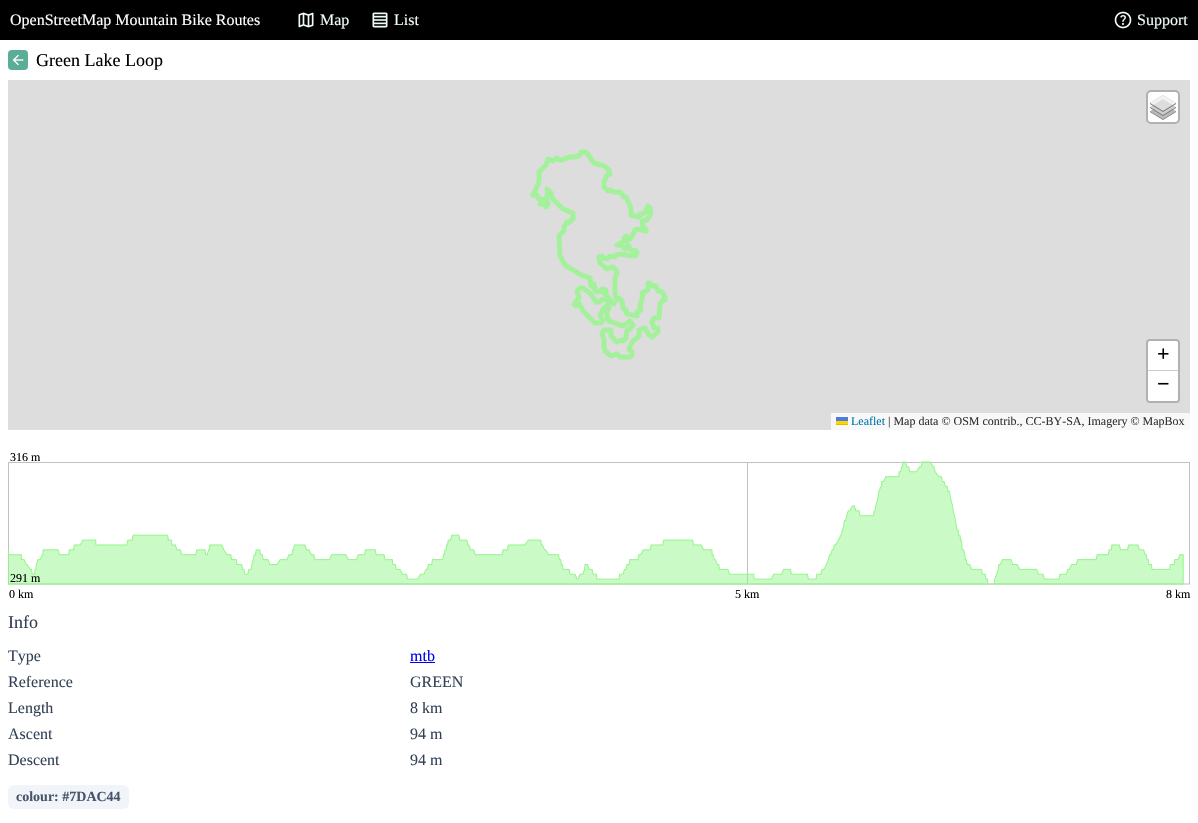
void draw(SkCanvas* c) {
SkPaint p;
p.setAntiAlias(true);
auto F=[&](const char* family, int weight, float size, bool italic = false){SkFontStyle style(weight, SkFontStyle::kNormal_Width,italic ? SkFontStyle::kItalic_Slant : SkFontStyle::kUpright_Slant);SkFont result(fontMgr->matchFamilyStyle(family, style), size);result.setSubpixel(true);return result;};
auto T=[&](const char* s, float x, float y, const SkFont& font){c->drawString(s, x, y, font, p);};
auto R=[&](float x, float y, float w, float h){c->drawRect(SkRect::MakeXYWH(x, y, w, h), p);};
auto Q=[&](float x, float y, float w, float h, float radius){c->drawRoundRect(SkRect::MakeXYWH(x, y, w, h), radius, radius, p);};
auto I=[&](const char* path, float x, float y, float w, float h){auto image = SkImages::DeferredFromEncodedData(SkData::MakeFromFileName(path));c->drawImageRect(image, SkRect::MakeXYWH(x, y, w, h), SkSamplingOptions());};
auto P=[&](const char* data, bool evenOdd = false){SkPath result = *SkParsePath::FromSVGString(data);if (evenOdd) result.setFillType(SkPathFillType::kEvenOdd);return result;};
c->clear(0xffffffff);
p.setColor(0xff000000);
R(0,0,1198,40);
auto f1 = F("Liberation Serif",400,16);
p.setColor(0xffffffff);
T("OpenStreetMap Mountain Bike Routes",10,25,f1);
I("1.png",298,12,16,16);
p.setColor(0xffeffcf8);
T("Map",320,25,f1);
I("2.png",372,12,16,16);
T("List",394,25,f1);
I("3.png",1114,11,18,18);
T("Support",1137,25,f1);
p.setColor(0xff5aad97);
Q(8,50,20,20,4);
I("4.png",12,54,12,12);
auto f2 = F("Liberation Serif",400,18);
p.setColor(0xff000000);
T("Green Lake Loop",36,66,f2);
p.setColor(0xffdddddd);
R(8,80,1182,350);
I("5.png",530,149,138,211);
p.setColor(0xffffffff);
c->drawRoundRect(SkRect::MakeXYWH(1147,91,32,32),4,4,p);
p.setStroke(true);
p.setStrokeWidth(2);
p.setColor(0xffb1b1b1);
c->drawRoundRect(SkRect::MakeXYWH(1147,91,32,32),4,4,p);
I("6.png",1150,95,26,25);
c->drawRoundRect(SkRect::MakeXYWH(1147,340,32,62),3,3,p);
p.setStroke(false);
p.setColor(0xffffffff);
c->drawPath(P("M1150 341h26c1 0 2 1 2 2v28h-30v-28c0-1 1-2 2-2z"),p);
p.setColor(0xffcccccc);
R(1148,370,30,1);
auto f3 = F("Liberation Serif",700,22);
p.setColor(0xff000000);
T("+",1157,361,f3);
p.setColor(0xffffffff);
c->drawPath(P("M1148 371h30v28c0 1-1 2-2 2h-26c-1 0-2-1-2-2z"),p);
p.setColor(0xff000000);
T("−",1157,391,f3);
p.setColor(0xfff8f8f8);
R(831,413,359,17);
auto f4 = F("Liberation Serif",400,12);
p.setColor(0xff0078a8);
T("Leaflet",851,425,f4);
p.setColor(0xff4c7be1);
R(836,417,12,4);
p.setColor(0xffffd500);
R(836,421,12,3);
p.setColor(0xffe0bc00);
R(836,424,12,1);
p.setColor(0xff333333);
T("| Map data © OSM contrib., CC-BY-SA, Imagery © MapBox",888,425,f4);
I("7.png",8,461,1182,124);
p.setColor(0xff000000);
T("316 m",10,461,f4);
T("291 m",10,582,f4);
T("0 km",9,598,f4);
T("5 km",735,598,f4);
T("8 km",1166,598,f4);
p.setColor(0xff334155);
T("Info",8,628,f2);
T("Type",8,661,f1);
p.setColor(0xff0000ee);
T("mtb",410,661,f1);
R(410,662,25,1);
p.setColor(0xff334155);
T("Reference",8,687,f1);
T("GREEN",410,687,f1);
T("Length",8,713,f1);
T("8 km",410,713,f1);
T("Ascent",8,739,f1);
T("94 m",410,739,f1);
T("Descent",8,765,f1);
T("94 m",410,765,f1);
p.setColor(0xfff1f5f9);
Q(8,785,121,24,6);
auto f5 = F("Liberation Serif",700,14);
p.setColor(0xff475569);
T("colour: #7DAC44",16,801,f5);
}
